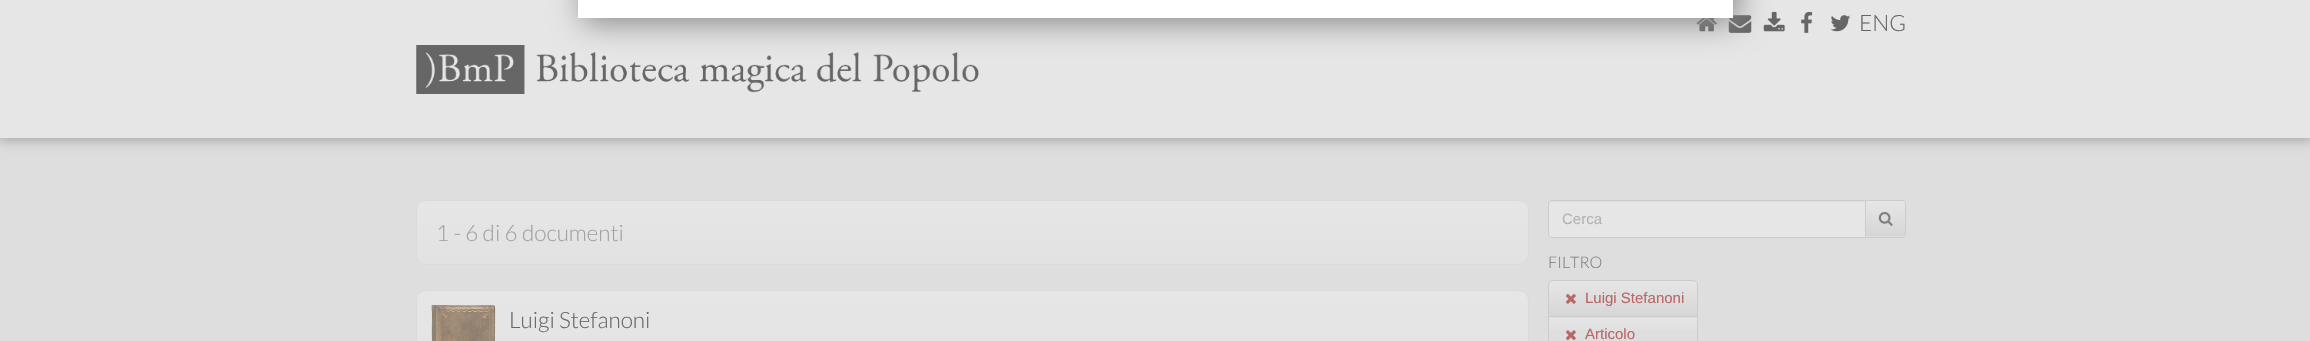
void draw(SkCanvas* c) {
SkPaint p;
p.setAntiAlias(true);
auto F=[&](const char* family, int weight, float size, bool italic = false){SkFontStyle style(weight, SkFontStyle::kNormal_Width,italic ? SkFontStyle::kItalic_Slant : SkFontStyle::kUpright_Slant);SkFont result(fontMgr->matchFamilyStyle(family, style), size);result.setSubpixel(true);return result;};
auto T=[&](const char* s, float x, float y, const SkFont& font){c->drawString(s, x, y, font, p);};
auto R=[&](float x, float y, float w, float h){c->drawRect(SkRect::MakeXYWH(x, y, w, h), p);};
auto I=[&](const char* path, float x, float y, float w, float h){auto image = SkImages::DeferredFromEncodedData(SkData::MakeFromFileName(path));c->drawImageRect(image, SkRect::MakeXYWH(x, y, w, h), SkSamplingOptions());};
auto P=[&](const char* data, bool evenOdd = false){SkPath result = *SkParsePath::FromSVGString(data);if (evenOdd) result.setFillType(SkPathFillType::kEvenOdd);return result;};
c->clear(0xffdedede);
p.setColor(0xffa2a2a2);
p.setMaskFilter(SkMaskFilter::MakeBlur(kNormal_SkBlurStyle, 6));
c->drawRect(SkRect::MakeXYWH(-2,-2,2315,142),p);
p.setMaskFilter(nullptr);
p.setColor(0xffe6e6e6);
R(0,0,2310,138);
I("1.png",1696,18,21,14);
I("2.png",1728,15,24,18);
I("3.png",1763,11,22,21);
I("6.png",416,45,563,49);
p.setColor(0xff888888);
p.setMaskFilter(SkMaskFilter::MakeBlur(kNormal_SkBlurStyle, 15.5));
c->drawRect(SkRect::MakeXYWH(583,-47,1155,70),p);
p.setMaskFilter(nullptr);
p.setColor(0xffffffff);
R(578,0,1155,18);
I("4.png",1801,12,12,21);
I("5.png",1830,15,21,17);
auto f1 = F("Lato",300,22.5);
p.setColor(0xff666666);
T("ENG",1859,31,f1);
c->save();
c->clipPath(P("M426 200h1093c5.5 0 10 4.5 10 10v45c0 5.5-4.5 10-10 10h-1093c-5.5 0-10-4.5-10-10v-45c0-5.5 4.5-10 10-10z"),true);
{
const SkColor colors[] = {0xffe6e6e6,0xffe2e2e2};
const float stops[] = {0,1};
const SkPoint ends[] = {{973,201}, {973,264}};
p.setShader(SkGradientShader::MakeLinear(ends, colors, stops, 2, SkTileMode::kClamp));
p.setAlpha(255);
}
R(416,201,1113,63);
c->restore();
p.setStroke(true);
p.setStrokeWidth(1);
p.setShader(nullptr);
p.setColor(0xffdadada);
c->drawRoundRect(SkRect::MakeXYWH(416.5,200.5,1112,64),9.5,9.5,p);
p.setStroke(false);
p.setColor(0xffa2a2a2);
T("1 - 6 di 6 documenti",436,241,f1);
c->save();
c->clipPath(P("M426 290h1093c5.5 0 10 4.5 10 10v105c0 5.5-4.5 10-10 10h-1093c-5.5 0-10-4.5-10-10v-105c0-5.5 4.5-10 10-10z"),true);
{
const SkColor colors[] = {0xffe6e6e6,0xffe2e2e2};
const float stops[] = {0,1};
const SkPoint ends[] = {{973,291}, {973,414}};
p.setShader(SkGradientShader::MakeLinear(ends, colors, stops, 2, SkTileMode::kClamp));
p.setAlpha(255);
}
R(416,291,1113,50);
c->restore();
p.setStroke(true);
p.setShader(nullptr);
p.setColor(0xffdadada);
c->drawRoundRect(SkRect::MakeXYWH(416.5,290.5,1112,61),9.5,9.5,p);
I("7.png",431,304,65,37);
p.setStroke(false);
p.setColor(0xff666666);
T("Luigi Stefanoni",509,328,f1);
p.setColor(0xffe6e6e6);
c->drawPath(P("M1552 200h314v38h-314c-2 0-4-2-4-4v-30c0-2 2-4 4-4z"),p);
p.setColor(0xffdcdcdc);
c->drawPath(P("M1551 202h314v-1h-313c-2 0-3 1-3 3v1c0-1 1-3 2-3z"),p);
p.setStroke(true);
p.setColor(0xffcccccc);
c->drawPath(P("M1552 200.5h313.5v37h-313.5c-2 0-3.5-1.5-3.5-3.5v-30c0-2 1.5-3.5 3.5-3.5z"),p);
auto f2 = F("Liberation Sans",400,15);
p.setStroke(false);
p.setColor(0xffb3b3b3);
T("Cerca",1562,224,f2);
p.setColor(0xffdedede);
c->drawPath(P("M1865 200h37c2 0 4 2 4 4v30c0 2-2 4-4 4h-37z"),p);
c->save();
c->clipPath(P("M1865 200h37c2 0 4 2 4 4v30c0 2-2 4-4 4h-37z"),true);
{
const SkColor colors[] = {0xffe6e6e6,0xffd6d6d6};
const float stops[] = {0,1};
const SkPoint ends[] = {{1886,201}, {1886,236}};
p.setShader(SkGradientShader::MakeLinear(ends, colors, stops, 2, SkTileMode::kClamp));
p.setAlpha(255);
}
R(1866,201,40,35);
c->restore();
p.setStroke(true);
p.setShader(nullptr);
p.setColor(0xffcccccc);
c->drawPath(P("M1865.5 200.5h36.5c2 0 3.5 1.5 3.5 3.5v30c0 2-1.5 3.5-3.5 3.5h-36.5z"),p);
I("8.png",1878,212,15,14);
auto f3 = F("Lato",300,16);
p.setStroke(false);
p.setColor(0xff808080);
T("FILTRO",1548,268,f3);
c->save();
c->clipPath(P("M1553 280h140c3 0 5 2 5 5v33h-150v-33c0-3 2-5 5-5z"),true);
{
const SkColor colors[] = {0xffe6e6e6,0xffd6d6d6};
const float stops[] = {0,1};
const SkPoint ends[] = {{1623,281}, {1623,316}};
p.setShader(SkGradientShader::MakeLinear(ends, colors, stops, 2, SkTileMode::kClamp));
p.setAlpha(255);
}
R(1548,281,150,35);
c->restore();
p.setStroke(true);
p.setShader(nullptr);
p.setColor(0xffcccccc);
c->drawPath(P("M1553 280.5h140c2.5 0 4.5 2 4.5 4.5v32.5h-149v-32.5c0-2.5 2-4.5 4.5-4.5z"),p);
I("9.png",1566,294,10,10);
p.setStroke(false);
p.setColor(0xffbb6666);
T("Luigi Stefanoni",1585,303,f2);
p.setColor(0xffdedede);
R(1549,317,148,1);
{
const SkColor colors[] = {0xffe6e6e6,0xffd6d6d6};
const float stops[] = {0,1};
const SkPoint ends[] = {{1623,318}, {1623,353}};
p.setShader(SkGradientShader::MakeLinear(ends, colors, stops, 2, SkTileMode::kClamp));
p.setAlpha(255);
}
R(1549,318,148,12);
p.setStroke(true);
p.setShader(nullptr);
p.setColor(0xffcccccc);
c->drawRect(SkRect::MakeXYWH(1548.5,316.5,149,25),p);
I("10.png",1566,330,10,11);
p.setStroke(false);
p.setColor(0xffbb6666);
T("Articolo",1585,339,f2);
}
